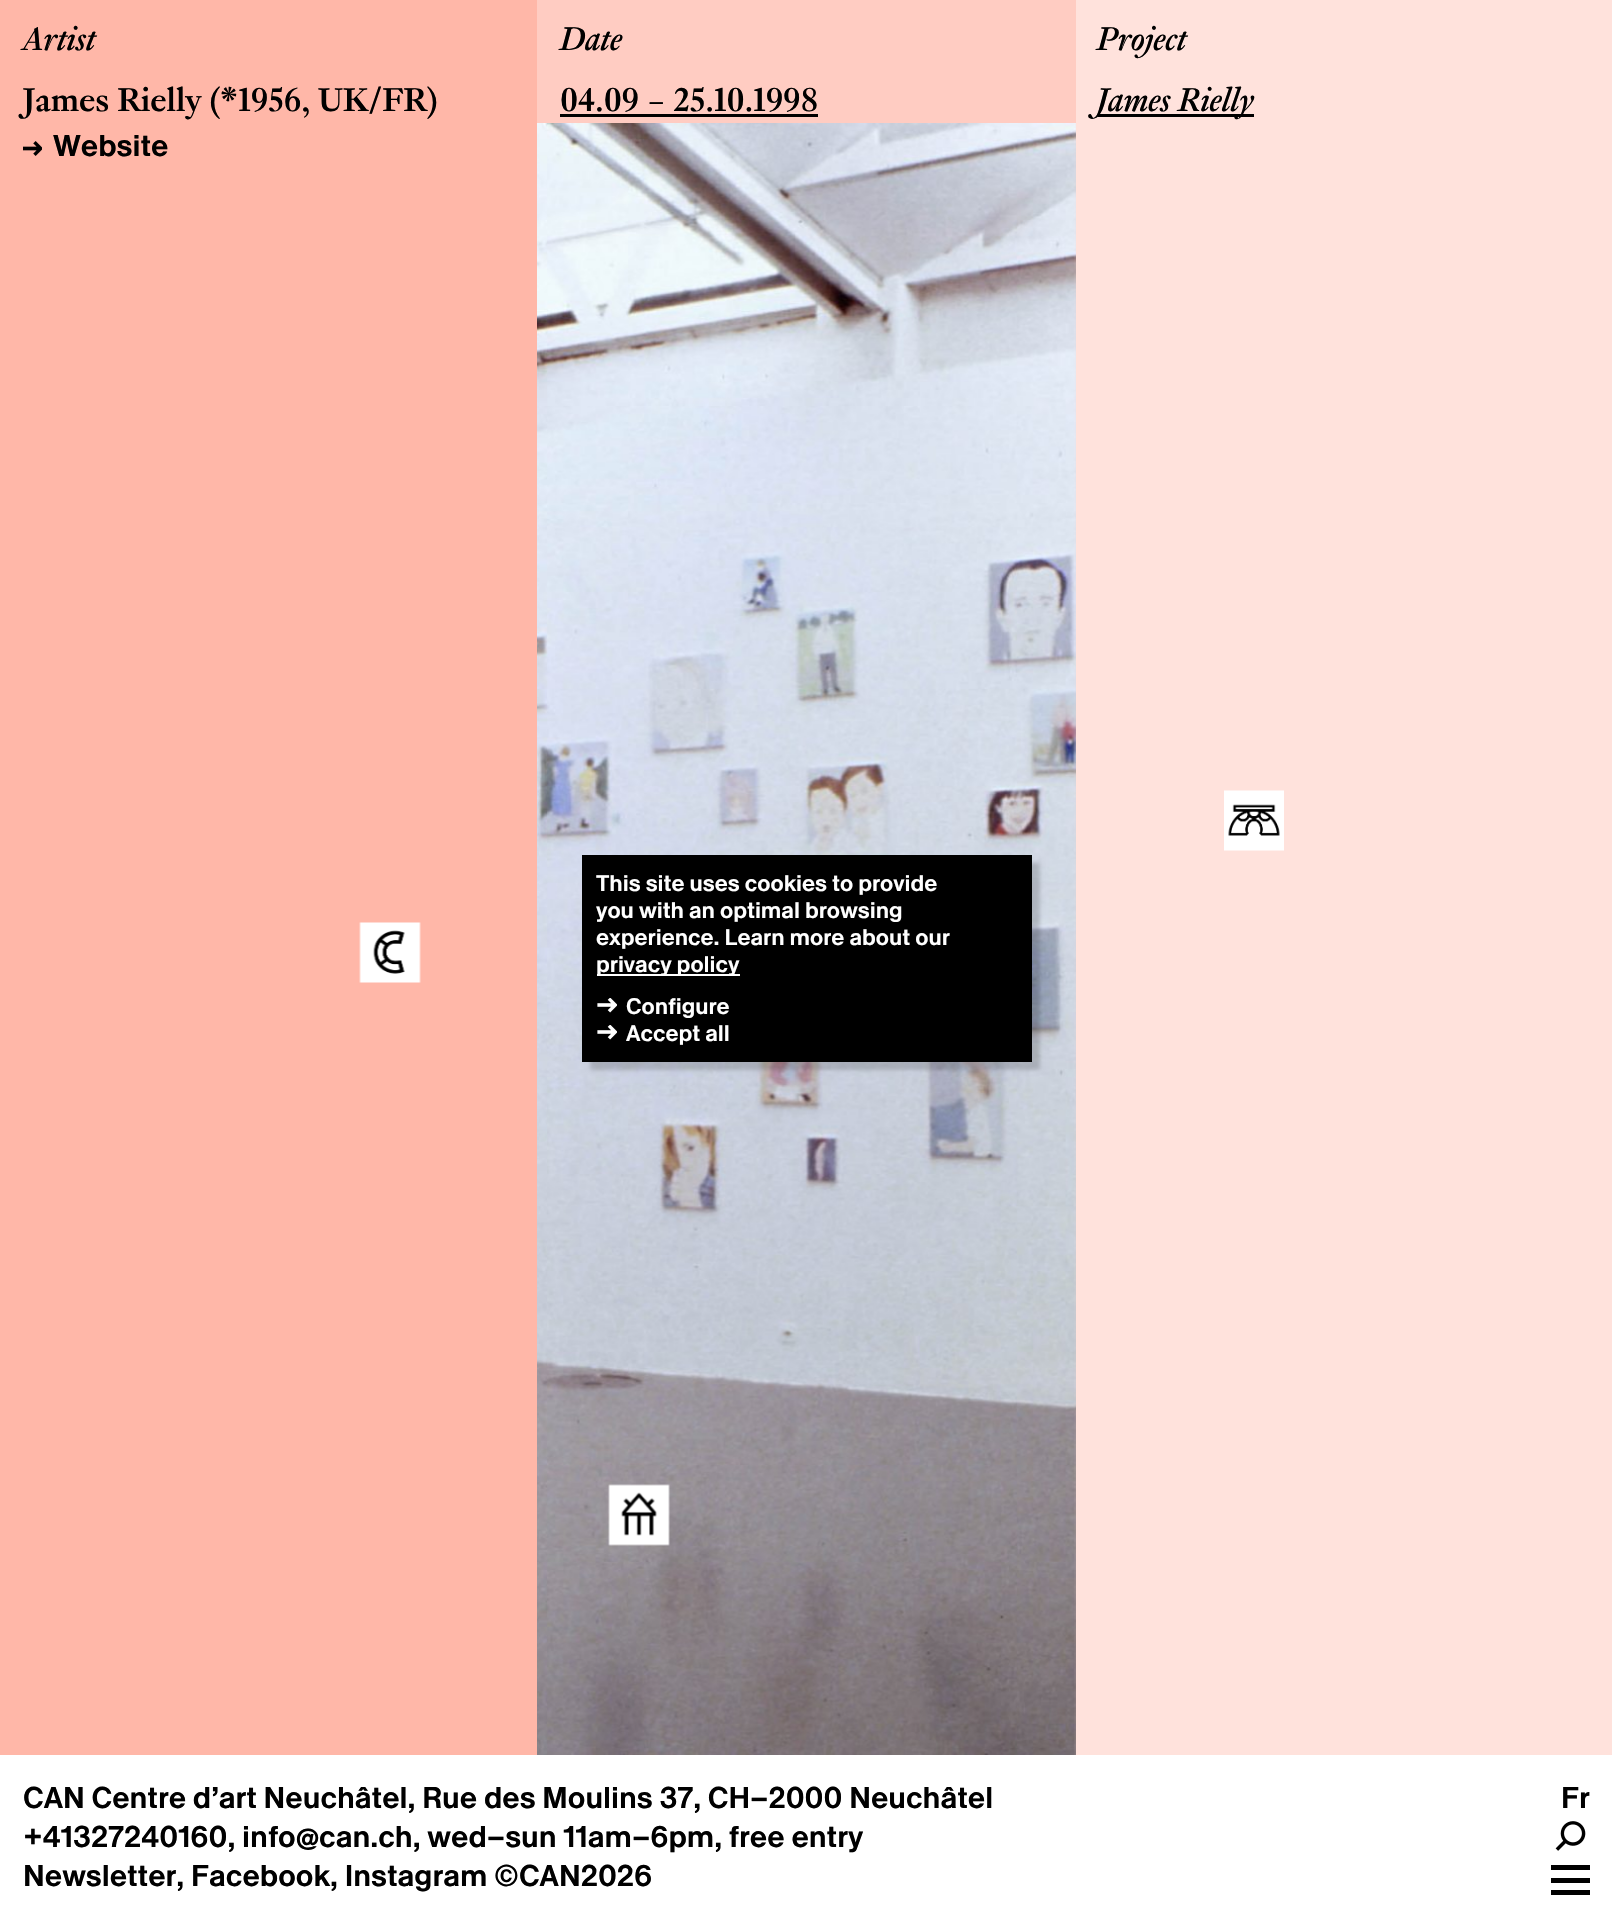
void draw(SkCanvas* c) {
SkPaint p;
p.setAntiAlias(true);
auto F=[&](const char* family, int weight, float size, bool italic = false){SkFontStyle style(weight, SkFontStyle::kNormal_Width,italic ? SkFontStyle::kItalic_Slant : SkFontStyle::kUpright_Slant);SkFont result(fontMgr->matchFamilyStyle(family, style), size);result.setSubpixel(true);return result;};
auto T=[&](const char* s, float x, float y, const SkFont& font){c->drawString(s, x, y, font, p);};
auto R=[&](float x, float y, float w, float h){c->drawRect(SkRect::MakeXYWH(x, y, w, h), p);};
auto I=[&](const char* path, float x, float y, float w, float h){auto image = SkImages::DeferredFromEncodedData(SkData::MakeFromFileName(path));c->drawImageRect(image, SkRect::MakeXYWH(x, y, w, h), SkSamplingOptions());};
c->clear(0xffffb7a8);
auto f1 = F("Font",700,36,true);
p.setColor(0xff000000);
T("Artist",23,50,f1);
auto f2 = F("Font",700,36);
T("James Rielly (*1956, UK/FR)",23,111,f2);
I("1.png",23,141,19,15);
auto f3 = F("Font",500,30);
T("Website",53,156,f3);
I("2.png",359,922,62,61);
p.setColor(0xffffccc2);
R(537,0,539,1755);
p.setColor(0xff000000);
T("Date",560,50,f1);
T("04.09 – 25.10.1998",560,111,f2);
R(560,114,258,3);
I("3.png",537,123,539,1632);
I("4.png",608,1484,62,62);
p.setColor(0xffffe2dc);
R(1076,0,536,1755);
p.setColor(0xff000000);
T("Project",1097,50,f1);
R(1098,114,156,3);
T("James Rielly",1097,111,f1);
I("5.png",1224,790,60,61);
p.setColor(0x29000000);
p.setMaskFilter(SkMaskFilter::MakeBlur(kNormal_SkBlurStyle, 2));
c->drawRect(SkRect::MakeXYWH(590,863,450,207),p);
p.setMaskFilter(nullptr);
p.setColor(0xff000000);
R(582,855,450,207);
auto f4 = F("Font",500,22.5);
p.setColor(0xffffffff);
T("This site uses cookies to provide",596,891,f4);
T("you with an optimal browsing",596,918,f4);
T("experience. Learn more about our",596,945,f4);
R(597,974,143,2);
T("privacy policy",596,972,f4);
I("6.png",597,998,20,15);
T("Configure",626,1014,f4);
I("6.png",597,1025,20,15);
T("Accept all",626,1041,f4);
R(0,1755,1612,162);
p.setColor(0xff000000);
T("CAN Centre d’art Neuchâtel, Rue des Moulins 37, CH–2000 Neuchâtel",23,1808,f3);
T("+41327240160, info@can.ch, wed–sun 11am–6pm, free entry",23,1847,f3);
T("Newsletter, Facebook, Instagram ©CAN2026",23,1886,f3);
T("Fr",1561,1808,f3);
I("7.png",1555,1821,31,30);
R(1551,1865,39,5);
R(1551,1878,39,5);
R(1551,1890,39,5);
}
